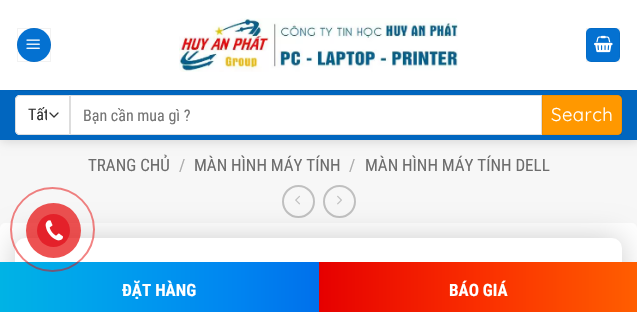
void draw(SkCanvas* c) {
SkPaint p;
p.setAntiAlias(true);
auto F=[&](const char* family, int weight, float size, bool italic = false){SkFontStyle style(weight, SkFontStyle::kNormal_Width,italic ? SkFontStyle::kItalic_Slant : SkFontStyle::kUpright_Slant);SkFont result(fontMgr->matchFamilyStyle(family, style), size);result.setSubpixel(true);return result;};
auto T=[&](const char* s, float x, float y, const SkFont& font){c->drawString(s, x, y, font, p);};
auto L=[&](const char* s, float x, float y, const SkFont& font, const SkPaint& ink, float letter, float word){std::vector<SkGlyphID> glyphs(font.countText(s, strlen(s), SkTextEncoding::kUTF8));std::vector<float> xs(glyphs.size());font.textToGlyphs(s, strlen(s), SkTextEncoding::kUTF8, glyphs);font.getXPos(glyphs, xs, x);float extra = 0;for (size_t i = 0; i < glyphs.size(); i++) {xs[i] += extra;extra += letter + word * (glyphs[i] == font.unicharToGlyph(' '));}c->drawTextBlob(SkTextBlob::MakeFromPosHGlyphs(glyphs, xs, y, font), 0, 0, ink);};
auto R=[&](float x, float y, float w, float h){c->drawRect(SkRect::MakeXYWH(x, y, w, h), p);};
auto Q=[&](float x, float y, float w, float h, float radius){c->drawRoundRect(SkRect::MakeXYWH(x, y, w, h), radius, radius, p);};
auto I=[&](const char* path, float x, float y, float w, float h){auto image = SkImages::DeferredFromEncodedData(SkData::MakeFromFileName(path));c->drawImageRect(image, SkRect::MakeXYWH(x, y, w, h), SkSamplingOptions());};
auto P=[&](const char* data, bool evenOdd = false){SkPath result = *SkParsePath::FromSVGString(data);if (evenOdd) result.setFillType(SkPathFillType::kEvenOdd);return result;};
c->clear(0xfff7f7f7);
p.setColor(0x26000000);
p.setMaskFilter(SkMaskFilter::MakeBlur(kNormal_SkBlurStyle, 5));
c->drawRect(SkRect::MakeXYWH(1,1,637,140),p);
p.setMaskFilter(nullptr);
p.setColor(0xffffffff);
R(0,0,637,90);
p.setColor(0xff0471d1);
c->drawCircle(34,45,17,p);
p.setStroke(true);
p.setStrokeWidth(1);
p.setColor(0x0d000000);
c->drawRect(SkRect::MakeXYWH(17.5,28.5,33,33),p);
I("1.png",26,39,14,10);
I("2.png",179,18,279,54);
p.setStroke(false);
p.setColor(0xff0471d1);
Q(586,28,34,34,5);
p.setStroke(true);
p.setColor(0x0d000000);
c->drawRect(SkRect::MakeXYWH(586.5,28.5,33,33),p);
I("3.png",594,35,19,18);
p.setStroke(false);
p.setColor(0xff0166bf);
R(0,90,637,50);
p.setColor(0xff025dad);
R(15,90,607,1);
p.setColor(0xffffffff);
c->drawPath(P("M20 95h50v40h-50c-3 0-5-2-5-5v-30c0-3 2-5 5-5z"),p);
p.setStroke(true);
p.setStrokeWidth(1.3);
p.setStrokeCap(SkPaint::kRound_Cap);
p.setStrokeJoin(SkPaint::kRound_Join);
p.setColor(0xff333333);
c->drawPath(P("M50 113l4 4l4-4"),p);
p.setStrokeWidth(1);
p.setStrokeCap(SkPaint::kButt_Cap);
p.setStrokeJoin(SkPaint::kMiter_Join);
p.setColor(0xffdddddd);
c->drawPath(P("M20 95.5h49.5v39h-49.5c-2.5 0-4.5-2-4.5-4.5v-30c0-2.5 2-4.5 4.5-4.5z"),p);
c->save();
c->clipRect(SkRect::MakeXYWH(28,102,19,26));
auto f1 = F("Roboto Condensed",400,16);
p.setStroke(false);
p.setColor(0xff333333);
T("Tất",28,120,f1);
c->restore();
p.setColor(0xffffffff);
c->drawRect(SkRect::MakeXYWH(70.5,95.5,471,39),p);
p.setStroke(true);
p.setColor(0xffdddddd);
c->drawRect(SkRect::MakeXYWH(70.5,95.5,471,39),p);
p.setStroke(false);
p.setColor(0xff757575);
T("Bạn cần mua gì ?",83,121,f1);
p.setColor(0xffff9800);
c->drawPath(P("M542 95h75c3 0 5 2 5 5v30c0 3-2 5-5 5h-75z"),p);
p.setStroke(true);
p.setColor(0x0d000000);
c->drawRect(SkRect::MakeXYWH(542.5,95.5,79,39),p);
auto f2 = F("Quicksand",400,18.5);
p.setStroke(false);
p.setColor(0xffffffff);
L("Search",551,121,f2,p,.5,0);
auto f3 = F("Roboto Condensed",400,17);
p.setColor(0xff6d6d6d);
T("TRANG CHỦ",88,171,f3);
p.setColor(0xffacacac);
T("/",179,171,f3);
p.setColor(0xff6d6d6d);
T("MÀN HÌNH MÁY TÍNH",194,171,f3);
p.setColor(0xffacacac);
T("/",349,171,f3);
p.setColor(0xff6d6d6d);
T("MÀN HÌNH MÁY TÍNH DELL",365,171,f3);
p.setStroke(true);
p.setStrokeWidth(2);
p.setColor(0xffc0c0c0);
c->drawCircle(298.5,201.5,15.5,p);
I("4.png",295,195,5,10);
c->drawCircle(339.5,201.5,15.5,p);
I("5.png",337,195,5,10);
p.setStroke(false);
p.setColor(0xffffffff);
Q(0,223,637,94,5);
p.setColor(0x33000000);
p.setMaskFilter(SkMaskFilter::MakeBlur(kNormal_SkBlurStyle, 15));
c->drawRoundRect(SkRect::MakeXYWH(15,238,607,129),10,10,p);
p.setMaskFilter(nullptr);
p.setColor(0xffffffff);
Q(15,238,607,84,10);
{
const SkColor colors[] = {0xff00b3e5,0xff00a5eb,0xff0095ef,0xff0084f0,0xff0070eb};
const float stops[] = {0,.25,.5,.75,1};
const SkPoint ends[] = {{0,294}, {319,294}};
p.setShader(SkGradientShader::MakeLinear(ends, colors, stops, 5, SkTileMode::kClamp));
p.setAlpha(255);
}
R(0,262,319,50);
auto f4 = F("Roboto Condensed",700,17);
p.setShader(nullptr);
p.setColor(0xffffffff);
T("ĐẶT HÀNG",122,296,f4);
{
const SkColor colors[] = {0xffe60000,0xfffa2e00,0xffff5e00};
const float stops[] = {0,.5,1};
const SkPoint ends[] = {{319,294}, {637,294}};
p.setShader(SkGradientShader::MakeLinear(ends, colors, stops, 3, SkTileMode::kClamp));
p.setAlpha(255);
}
R(319,262,318,50);
p.setShader(nullptr);
p.setColor(0xffffffff);
T("BÁO GIÁ",449,296,f4);
p.setStroke(true);
p.setColor(0x80e60808);
c->drawCircle(52.5,229.5,41.5,p);
p.setStroke(false);
p.setColor(0xb3e60808);
c->drawCircle(53.5,230.5,27.5,p);
p.setColor(0xffe4212a);
c->drawCircle(53.5,230.5,16.5,p);
I("6.png",45,220,18,21);
}
